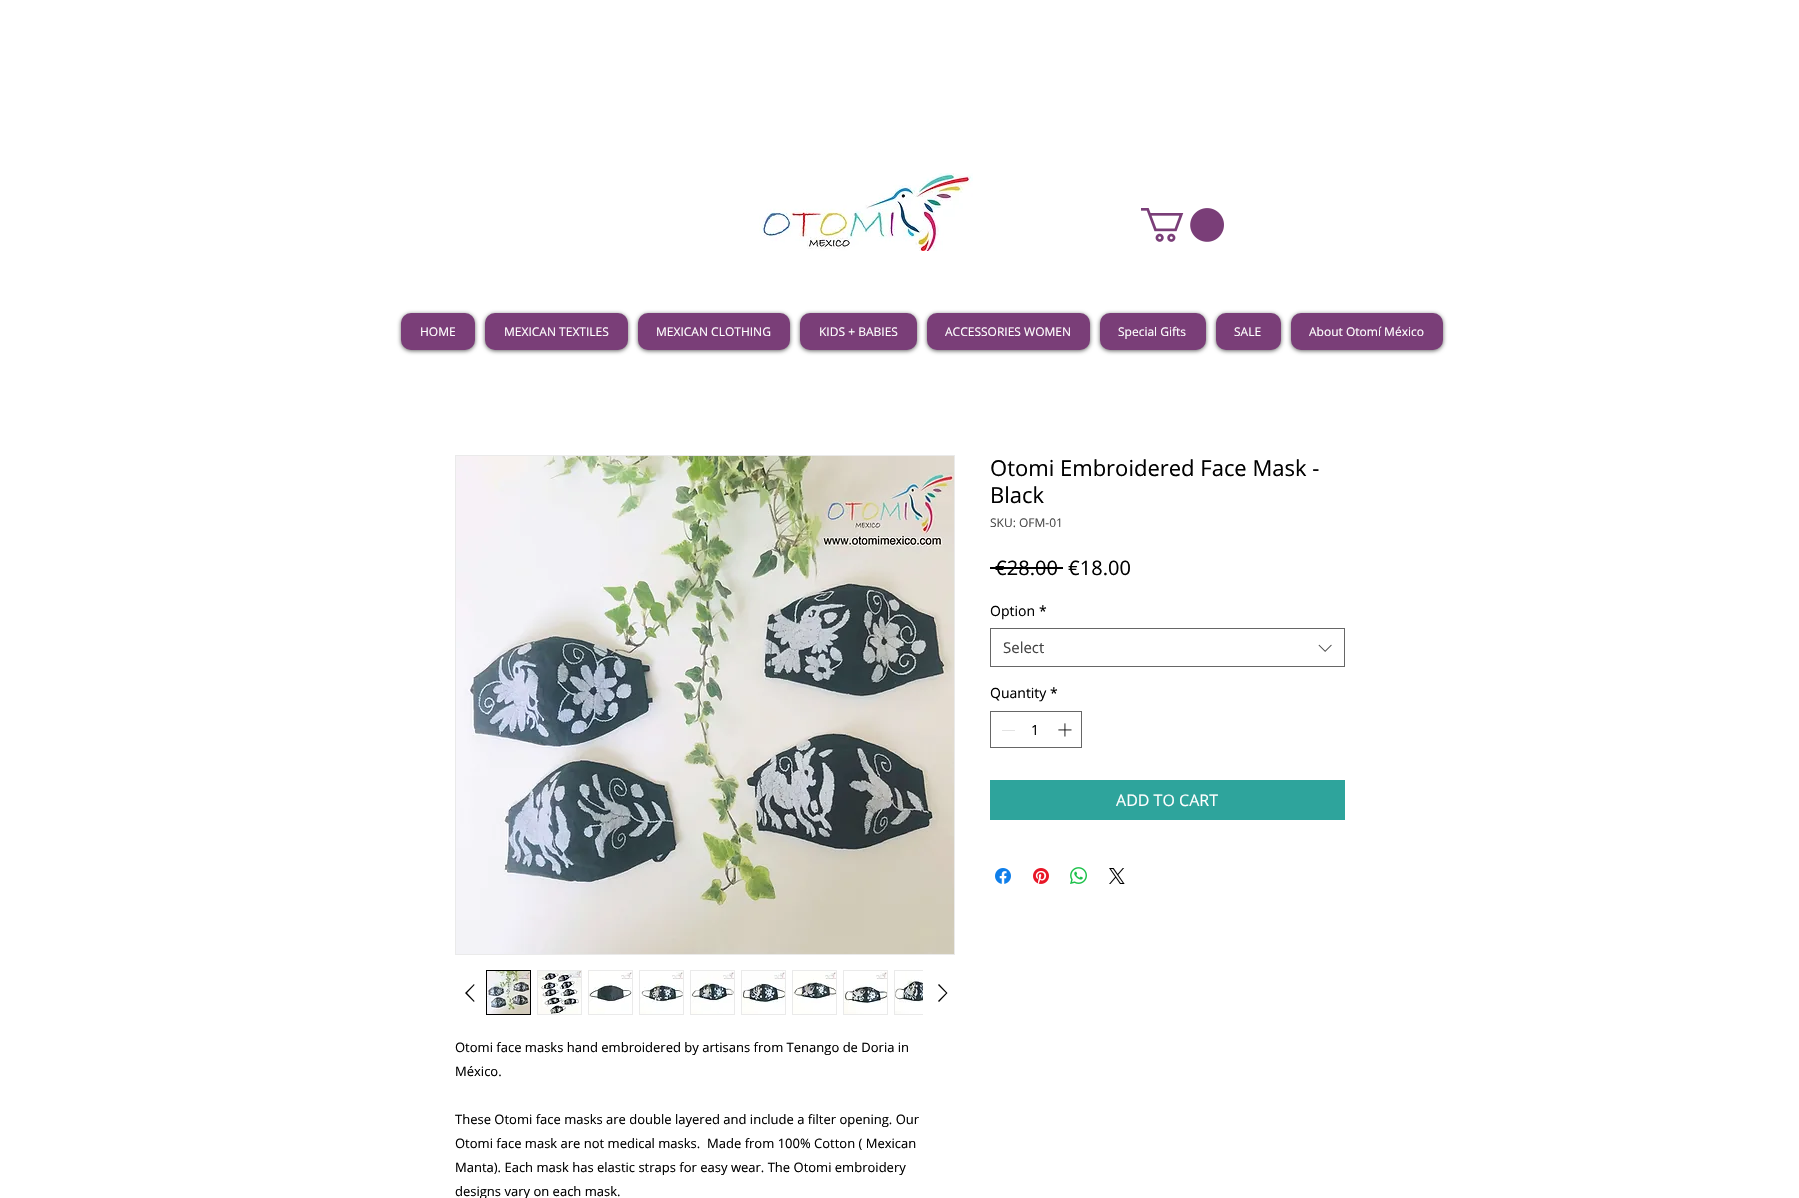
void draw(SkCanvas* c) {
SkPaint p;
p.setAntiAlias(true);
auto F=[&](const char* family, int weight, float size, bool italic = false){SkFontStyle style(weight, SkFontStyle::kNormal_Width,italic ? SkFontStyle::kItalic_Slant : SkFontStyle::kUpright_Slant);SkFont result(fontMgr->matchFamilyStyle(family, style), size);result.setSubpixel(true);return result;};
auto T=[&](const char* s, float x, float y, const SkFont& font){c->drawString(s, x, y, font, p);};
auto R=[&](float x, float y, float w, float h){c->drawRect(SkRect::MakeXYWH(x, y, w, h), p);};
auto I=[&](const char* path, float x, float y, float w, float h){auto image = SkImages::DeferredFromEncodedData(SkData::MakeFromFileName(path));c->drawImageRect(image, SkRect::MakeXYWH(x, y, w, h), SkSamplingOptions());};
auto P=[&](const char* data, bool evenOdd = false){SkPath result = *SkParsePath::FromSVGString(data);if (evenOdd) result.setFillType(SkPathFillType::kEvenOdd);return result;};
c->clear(0xffffffff);
I("1.png",759,173,214,78);
I("2.png",1141,208,83,34);
p.setColor(0x99000000);
p.setMaskFilter(SkMaskFilter::MakeBlur(kNormal_SkBlurStyle, 2));
c->drawRoundRect(SkRect::MakeXYWH(401,314,74,37),10,10,p);
p.setMaskFilter(nullptr);
p.setColor(0xff7a3e78);
c->drawRoundRect(SkRect::MakeXYWH(403,315,70,33),8,8,p);
p.setStroke(true);
p.setStrokeWidth(4);
c->drawRoundRect(SkRect::MakeXYWH(403,315,70,33),8,8,p);
auto f1 = F("Open Sans",400,12);
p.setStroke(false);
p.setColor(0xffffffff);
T("HOME",420,336,f1);
p.setColor(0x99000000);
p.setMaskFilter(SkMaskFilter::MakeBlur(kNormal_SkBlurStyle, 2));
c->drawRoundRect(SkRect::MakeXYWH(485,314,143,37),10,10,p);
p.setMaskFilter(nullptr);
p.setColor(0xff7a3e78);
c->drawRoundRect(SkRect::MakeXYWH(487,315,139,33),8,8,p);
p.setStroke(true);
c->drawRoundRect(SkRect::MakeXYWH(487,315,139,33),8,8,p);
p.setStroke(false);
p.setColor(0xffffffff);
T("MEXICAN TEXTILES",504,336,f1);
p.setColor(0x99000000);
p.setMaskFilter(SkMaskFilter::MakeBlur(kNormal_SkBlurStyle, 2));
c->drawRoundRect(SkRect::MakeXYWH(638,314,152,37),10,10,p);
p.setMaskFilter(nullptr);
p.setColor(0xff7a3e78);
c->drawRoundRect(SkRect::MakeXYWH(640,315,148,33),8,8,p);
p.setStroke(true);
c->drawRoundRect(SkRect::MakeXYWH(640,315,148,33),8,8,p);
p.setStroke(false);
p.setColor(0xffffffff);
T("MEXICAN CLOTHING",656,336,f1);
p.setColor(0x99000000);
p.setMaskFilter(SkMaskFilter::MakeBlur(kNormal_SkBlurStyle, 2));
c->drawRoundRect(SkRect::MakeXYWH(800,314,117,37),10,10,p);
p.setMaskFilter(nullptr);
p.setColor(0xff7a3e78);
c->drawRoundRect(SkRect::MakeXYWH(802,315,113,33),8,8,p);
p.setStroke(true);
c->drawRoundRect(SkRect::MakeXYWH(802,315,113,33),8,8,p);
p.setStroke(false);
p.setColor(0xffffffff);
T("KIDS + BABIES",819,336,f1);
p.setColor(0x99000000);
p.setMaskFilter(SkMaskFilter::MakeBlur(kNormal_SkBlurStyle, 2));
c->drawRoundRect(SkRect::MakeXYWH(927,314,163,37),10,10,p);
p.setMaskFilter(nullptr);
p.setColor(0xff7a3e78);
c->drawRoundRect(SkRect::MakeXYWH(929,315,159,33),8,8,p);
p.setStroke(true);
c->drawRoundRect(SkRect::MakeXYWH(929,315,159,33),8,8,p);
p.setStroke(false);
p.setColor(0xffffffff);
T("ACCESSORIES WOMEN",945,336,f1);
p.setColor(0x99000000);
p.setMaskFilter(SkMaskFilter::MakeBlur(kNormal_SkBlurStyle, 2));
c->drawRoundRect(SkRect::MakeXYWH(1100,314,106,37),10,10,p);
p.setMaskFilter(nullptr);
p.setColor(0xff7a3e78);
c->drawRoundRect(SkRect::MakeXYWH(1102,315,102,33),8,8,p);
p.setStroke(true);
c->drawRoundRect(SkRect::MakeXYWH(1102,315,102,33),8,8,p);
p.setStroke(false);
p.setColor(0xffffffff);
T("Special Gifts",1118,336,f1);
p.setColor(0x99000000);
p.setMaskFilter(SkMaskFilter::MakeBlur(kNormal_SkBlurStyle, 2));
c->drawRoundRect(SkRect::MakeXYWH(1216,314,65,37),10,10,p);
p.setMaskFilter(nullptr);
p.setColor(0xff7a3e78);
c->drawRoundRect(SkRect::MakeXYWH(1218,315,61,33),8,8,p);
p.setStroke(true);
c->drawRoundRect(SkRect::MakeXYWH(1218,315,61,33),8,8,p);
p.setStroke(false);
p.setColor(0xffffffff);
T("SALE",1234,336,f1);
p.setColor(0x99000000);
p.setMaskFilter(SkMaskFilter::MakeBlur(kNormal_SkBlurStyle, 2));
c->drawRoundRect(SkRect::MakeXYWH(1291,314,152,37),10,10,p);
p.setMaskFilter(nullptr);
p.setColor(0xff7a3e78);
c->drawRoundRect(SkRect::MakeXYWH(1293,315,148,33),8,8,p);
p.setStroke(true);
c->drawRoundRect(SkRect::MakeXYWH(1293,315,148,33),8,8,p);
p.setStroke(false);
p.setColor(0xffffffff);
T("About Otomí México",1309,336,f1);
auto f2 = F("Open Sans",400,22);
p.setColor(0xff000000);
T("Otomi Embroidered Face Mask -",990,476,f2);
T("Black",990,503,f2);
p.setColor(0xff4a4a4a);
T("SKU: OFM-01",990,527,f1);
auto f3 = F("Open Sans",400,20);
p.setColor(0xff000000);
T("€28.00",995,575,f3);
R(990,567,73,2);
T("€18.00",1068,575,f3);
auto f4 = F("Open Sans",400,14);
T("Option",990,616,f4);
T("*",1039,616,f4);
p.setStroke(true);
p.setStrokeWidth(1);
p.setColor(0xff666666);
c->drawRect(SkRect::MakeXYWH(990.5,628.5,354,38),p);
auto f5 = F("Open Sans",400,15);
p.setStroke(false);
p.setColor(0xff444444);
T("Select",1003,653,f5);
I("3.png",1318,644,14,8);
p.setColor(0xff000000);
T("Quantity",990,698,f4);
T("*",1050,698,f4);
p.setStroke(true);
p.setColor(0xff666666);
c->drawRect(SkRect::MakeXYWH(990.5,711.5,91,36),p);
p.setStroke(false);
p.setColor(0xffe3e3e3);
R(1002,730,13,1);
p.setColor(0xff000000);
T("1",1031,735,f4);
I("4.png",1058,723,14,14);
p.setColor(0xff2ea49c);
R(990,780,355,40);
auto f6 = F("Open Sans",400,16);
p.setColor(0xffffffff);
T("ADD TO CART",1116,806,f6);
I("5.png",995,868,16,16);
I("6.png",1033,868,16,16);
I("7.png",1070,867,17,17);
I("8.png",1109,868,16,16);
p.setStroke(true);
p.setColor(0xffeaeaea);
c->drawRect(SkRect::MakeXYWH(455.5,455.5,499,499),p);
I("9.png",456,456,498,498);
p.setStroke(false);
p.setColor(0xff000000);
c->drawPath(P("M474 984l.5 1l-7.5 8l7.5 8l-.5 1l-9-9z",true),p);
p.setStroke(true);
c->drawRect(SkRect::MakeXYWH(486.5,970.5,44,44),p);
I("10.png",487,971,43,43);
p.setStroke(false);
p.setColor(0xffeaeaea);
R(537,970,45,45);
I("11.png",538,971,43,43);
R(588,970,45,45);
I("12.png",589,971,43,43);
R(639,970,45,45);
I("13.png",640,971,43,43);
R(690,970,45,45);
I("14.png",691,971,43,43);
R(741,970,45,45);
I("15.png",742,971,43,43);
R(792,970,45,45);
I("16.png",793,971,43,43);
R(843,970,45,45);
I("17.png",844,971,43,43);
R(894,970,29,45);
I("18.png",895,971,28,43);
p.setColor(0xff000000);
c->drawPath(P("M939 984l8.5 9l-8.5 9l-1-1l8-8l-8-8z",true),p);
auto f7 = F("Open Sans",400,13);
T("Otomi face masks hand embroidered by artisans from Tenango de Doria in",455,1052,f7);
T("México.",455,1076,f7);
T("These Otomi face masks are double layered and include a filter opening. Our",455,1124,f7);
T("Otomi face mask are not medical masks.  Made from 100% Cotton ( Mexican",455,1148,f7);
T("Manta). Each mask has elastic straps for easy wear. The Otomi embroidery",455,1172,f7);
T("designs vary on each mask.",455,1196,f7);
}
